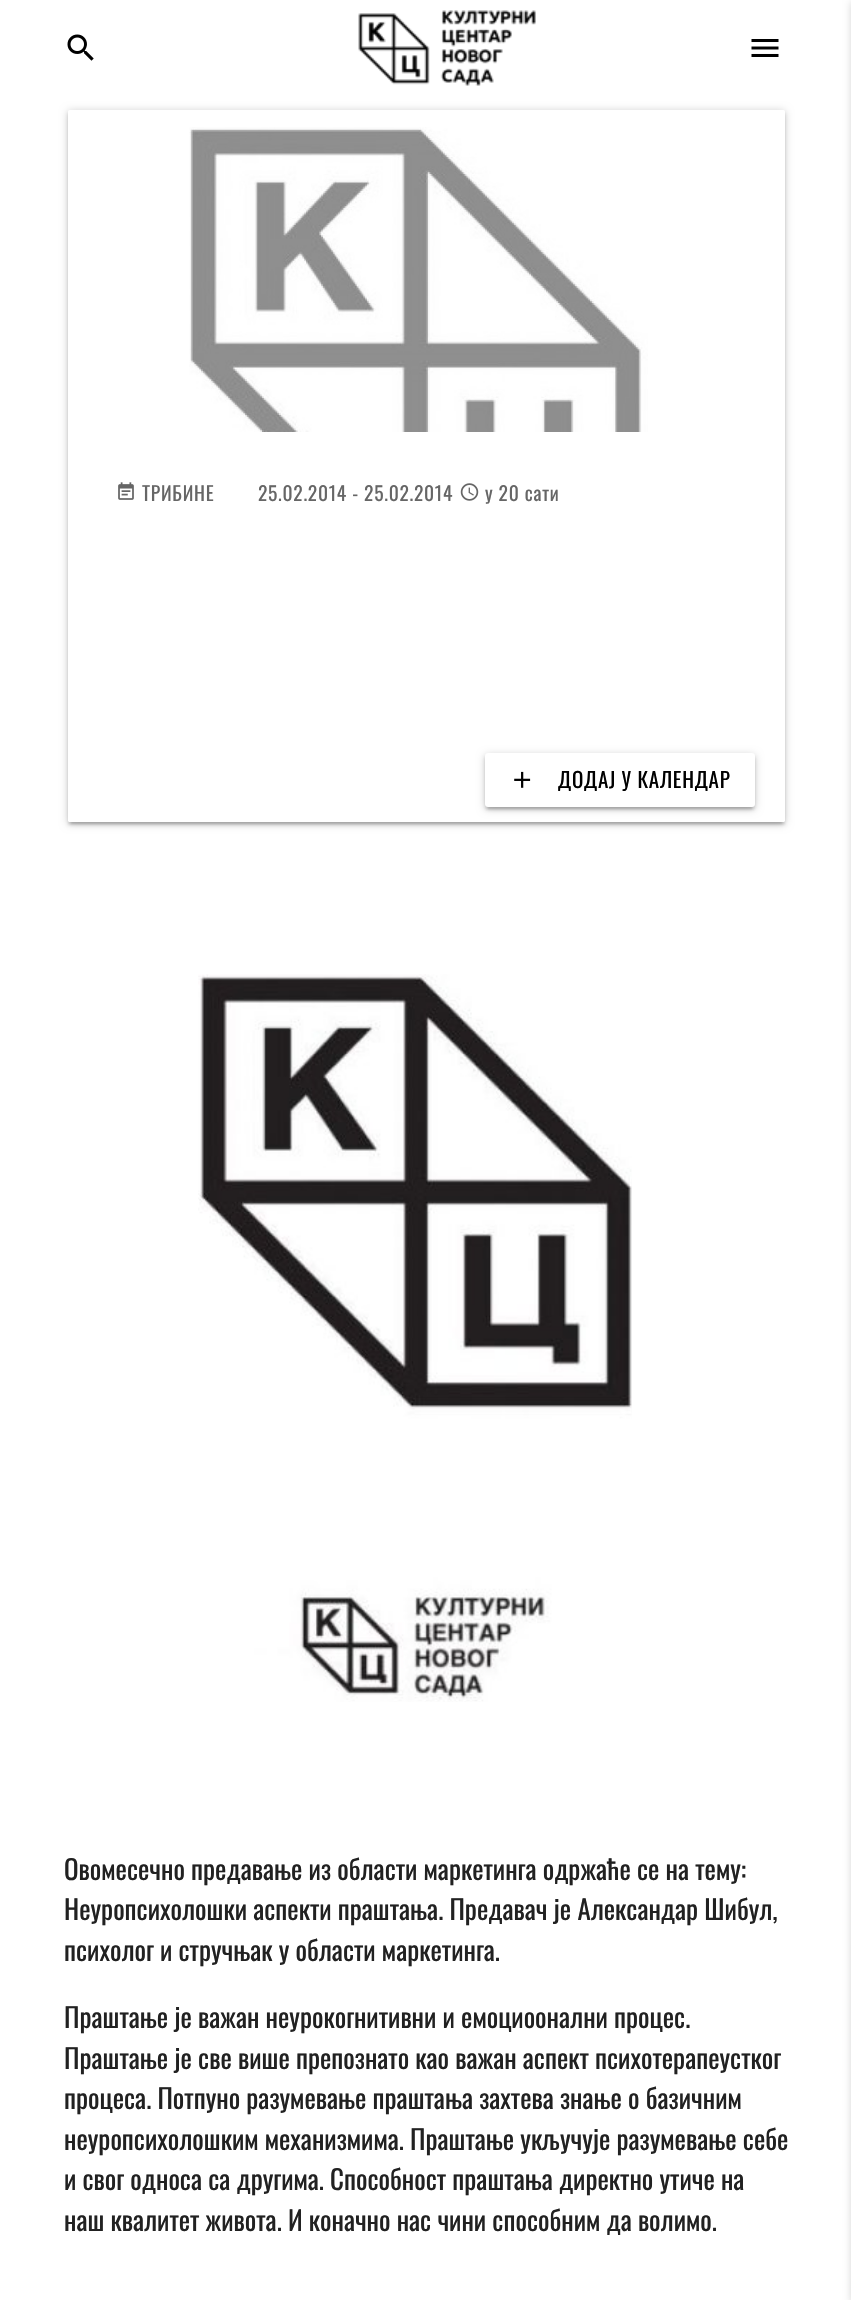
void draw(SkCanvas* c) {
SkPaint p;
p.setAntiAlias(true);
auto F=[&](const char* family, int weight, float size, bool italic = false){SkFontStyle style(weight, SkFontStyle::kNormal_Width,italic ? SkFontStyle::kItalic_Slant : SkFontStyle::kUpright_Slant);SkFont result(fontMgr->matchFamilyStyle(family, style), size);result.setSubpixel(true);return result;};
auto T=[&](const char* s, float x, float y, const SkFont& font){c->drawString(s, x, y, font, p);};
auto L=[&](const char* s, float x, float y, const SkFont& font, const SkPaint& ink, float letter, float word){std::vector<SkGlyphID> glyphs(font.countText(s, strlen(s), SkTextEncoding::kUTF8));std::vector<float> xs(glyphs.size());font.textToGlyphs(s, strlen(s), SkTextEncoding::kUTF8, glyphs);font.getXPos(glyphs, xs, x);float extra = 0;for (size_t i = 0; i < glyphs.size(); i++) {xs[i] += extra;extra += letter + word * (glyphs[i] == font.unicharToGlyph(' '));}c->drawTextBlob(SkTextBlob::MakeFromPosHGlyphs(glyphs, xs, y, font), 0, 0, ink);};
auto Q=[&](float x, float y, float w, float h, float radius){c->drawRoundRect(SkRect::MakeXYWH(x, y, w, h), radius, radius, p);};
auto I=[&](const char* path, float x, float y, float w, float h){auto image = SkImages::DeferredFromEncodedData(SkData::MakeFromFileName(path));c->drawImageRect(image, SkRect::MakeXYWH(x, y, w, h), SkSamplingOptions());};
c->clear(0xffffffff);
I("1.png",67,34,27,27);
I("2.png",358,10,178,76);
I("3.png",751,39,28,18);
p.setColor(0x33000000);
p.setMaskFilter(SkMaskFilter::MakeBlur(kNormal_SkBlurStyle, 4));
c->drawRect(SkRect::MakeXYWH(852,2,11,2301),p);
p.setMaskFilter(nullptr);
p.setMaskFilter(SkMaskFilter::MakeBlur(kNormal_SkBlurStyle, 4));
c->drawRoundRect(SkRect::MakeXYWH(68,111,717,713),1.5,1.5,p);
p.setMaskFilter(nullptr);
p.setColor(0x1f000000);
p.setMaskFilter(SkMaskFilter::MakeBlur(kNormal_SkBlurStyle, 1));
c->drawRect(SkRect::MakeXYWH(71,117,711,707),p);
p.setMaskFilter(nullptr);
p.setColor(0x24000000);
p.setMaskFilter(SkMaskFilter::MakeBlur(kNormal_SkBlurStyle, 1.5));
c->drawRoundRect(SkRect::MakeXYWH(68,113,717,712),1.5,1.5,p);
p.setMaskFilter(nullptr);
p.setColor(0xffffffff);
Q(68,110,717,712,1.5);
I("4.png",189,127,459,305);
I("5.png",118,482,16,18);
auto f1 = F("Oswald",400,19.5);
p.setColor(0xff666666);
L("ТРИБИНЕ",142,501,f1,p,.75,0);
L("25.02.2014 - 25.02.2014",258,501,f1,p,.75,0);
I("6.png",460,483,19,18);
L("у 20 сати",485,501,f1,p,.75,0);
p.setColor(0x33000000);
p.setMaskFilter(SkMaskFilter::MakeBlur(kNormal_SkBlurStyle, 4));
c->drawRoundRect(SkRect::MakeXYWH(485,755,270,54),3,3,p);
p.setMaskFilter(nullptr);
p.setColor(0x1f000000);
p.setMaskFilter(SkMaskFilter::MakeBlur(kNormal_SkBlurStyle, 1));
c->drawRect(SkRect::MakeXYWH(488,761,264,48),p);
p.setMaskFilter(nullptr);
p.setColor(0x24000000);
p.setMaskFilter(SkMaskFilter::MakeBlur(kNormal_SkBlurStyle, 1.5));
c->drawRoundRect(SkRect::MakeXYWH(485,756,270,54),3,3,p);
p.setMaskFilter(nullptr);
p.setColor(0xffffffff);
Q(485,753,270,54,3);
I("7.png",514,771,17,17);
auto f2 = F("Oswald",400,21);
p.setColor(0xff000000);
L("ДОДАЈ У КАЛЕНДАР",558,788,f2,p,.75,0);
I("8.png",198,974,434,728);
auto f3 = F("Oswald",400,27);
p.setColor(0xff212121);
T("Овомесечно предавање из области маркетинга одржаће се на тему:",64,1880,f3);
T("Неуропсихолошки аспекти праштања. Предавач је Александар Шибул,",64,1920,f3);
T("психолог и стручњак у области маркетинга.",64,1961,f3);
T("Праштање је важан неурокогнитивни и емоциоонални процес.",64,2028,f3);
T("Праштање је све више препознато као важан аспект психотерапеустког",64,2069,f3);
T("процеса. Потпуно разумевање праштања захтева знање о базичним",64,2109,f3);
T("неуропсихолошким механизмима. Праштање укључује разумевање себе",64,2150,f3);
T("и свог односа са другима. Способност праштања директно утиче на",64,2190,f3);
T("наш квалитет живота. И коначно нас чини способним да волимо.",64,2231,f3);
}
